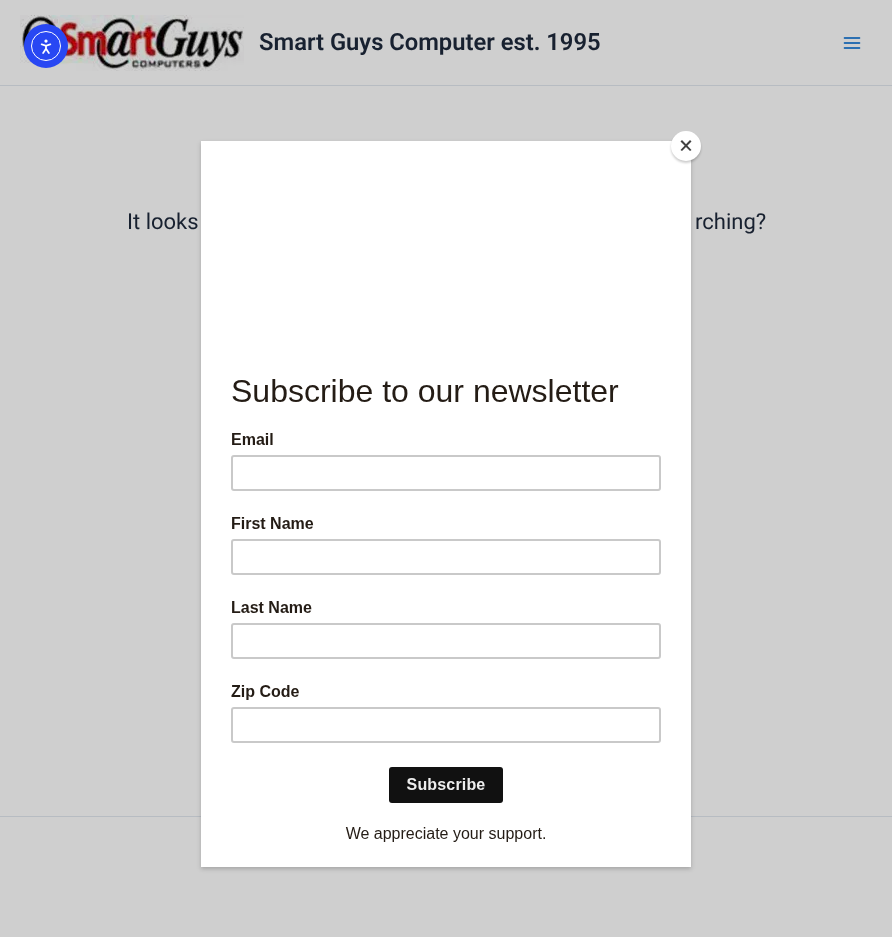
<svg xmlns="http://www.w3.org/2000/svg" width="892" height="937">
<style>
.a{font:600 23.75px Roboto;fill:#182130}
.b{font:22px Roboto;fill:#182130}
</style>
<rect width="100%" height="100%" fill="#cfcfcf"/>
<image href="2.png" x="20" y="15" width="224" height="56"/>
<circle fill="#2847f3" cx="46" cy="46" r="22"/>
<circle fill="none" stroke="#fff" cx="46" cy="46" r="14.5"/>
<image href="1.png" x="40" y="39" width="12" height="15"/>
<path fill="#b7bcc2" d="M0 85h892v1H0z"/>
<image href="3.png" x="843" y="37" width="18" height="12"/>
<path fill="#b7bcc2" d="M0 816h892v1H0z"/>
<path fill="#00000033" filter="blur(2px)" d="M201 143h490v726H201z"/>
<image href="4.png" x="201" y="141" width="490" height="726"/>
<rect fill="#00000033" filter="blur(1px)" x="671" y="133" width="30" height="30" rx="15"/>
<circle fill="#fff" cx="686" cy="146" r="15"/>
<path fill="#414141" d="M690 140l1.5 1.5l-9.5 9.5l-1.5-1z"/>
<path fill="#414141" d="M680.5 141.5l1.5-1.5l9.5 10l-1.5 1z"/>
<text class="a" x="259" y="50">Smart Guys Computer est. 1995</text>
<text class="b" x="127" y="229">It looks</text>
<text class="b" x="695" y="229">rching?</text>
</svg>
